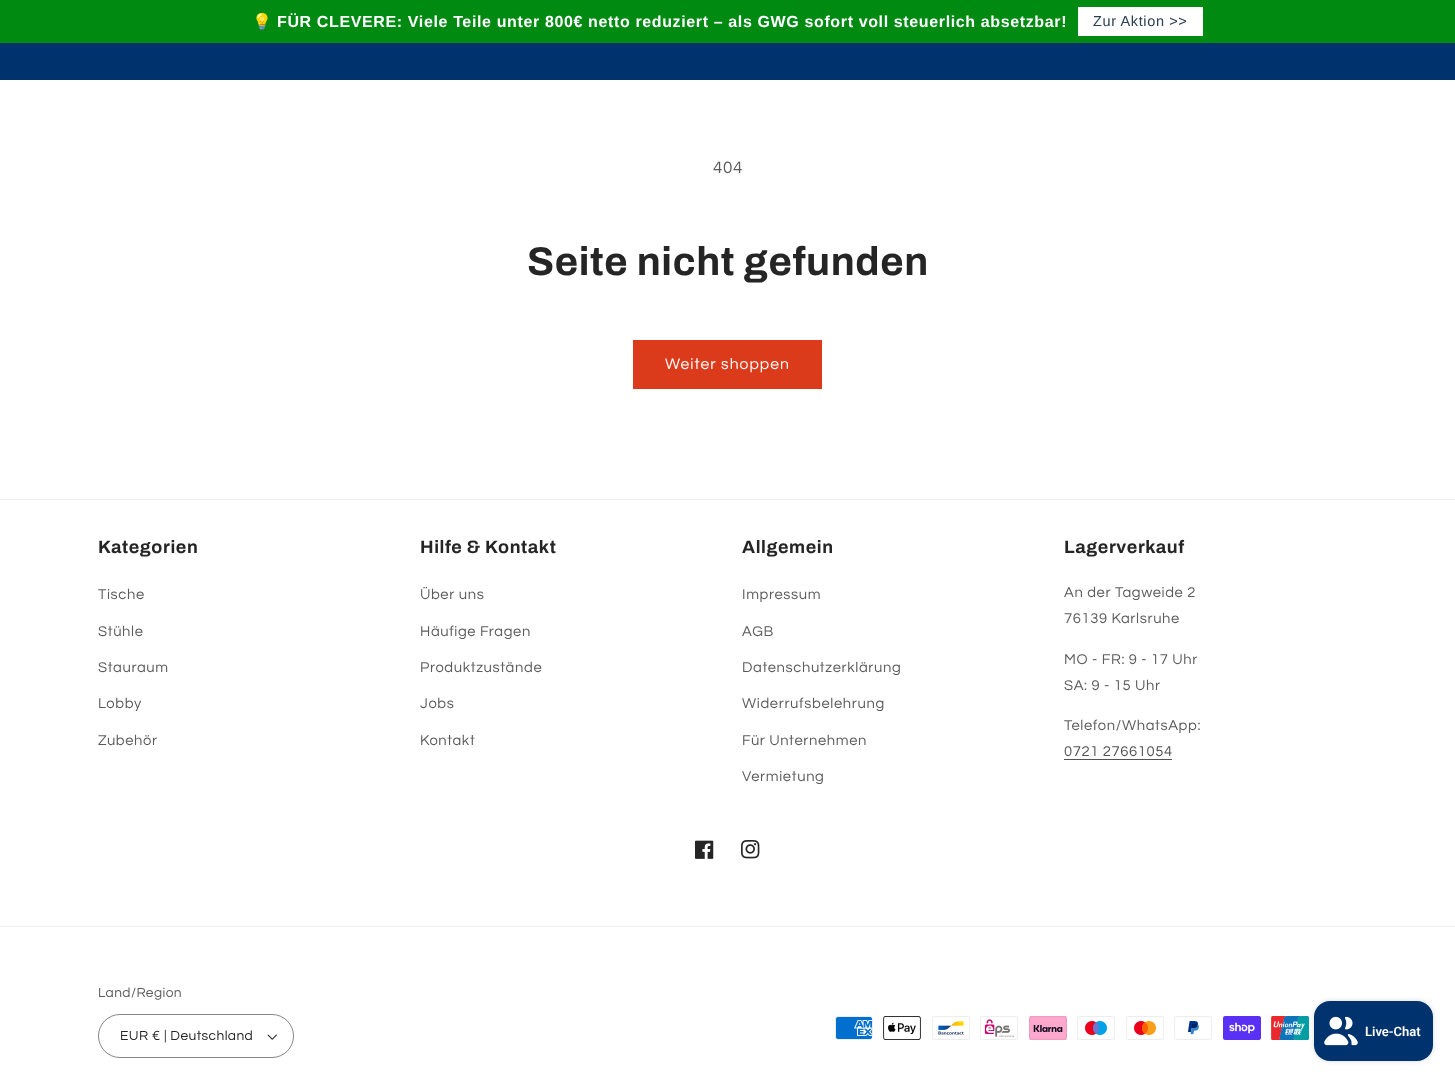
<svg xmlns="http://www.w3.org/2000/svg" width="1455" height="1082">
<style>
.a{font:bold 16px Noto Color Emoji;letter-spacing:0.63px;fill:#fff}
.b{font:bold 16px Liberation Sans;letter-spacing:0.63px;fill:#fff}
.c{font:14.5px Liberation Sans;letter-spacing:0.63px;fill:#2c4053}
.d{font:17px Questrial;letter-spacing:0.63px;fill:#5c5c5c}
.e{font:bold 40px Archivo;letter-spacing:0.6px;fill:#252525}
.f{font:15.75px Questrial;letter-spacing:1px;fill:#fff}
.g{font:bold 18px Archivo;letter-spacing:0.6px;fill:#252525}
.h{font:14.75px Questrial;letter-spacing:0.63px;fill:#5c5c5c}
.i{font:14.75px Questrial;letter-spacing:0.63px;fill:#535353}
.j{font:13.75px Questrial;letter-spacing:0.4px;fill:#5c5c5c}
.k{font:13.75px Questrial;letter-spacing:0.4px;fill:#252525}
.l{font:600 13px Roboto;fill:#fff}
</style>
<rect width="100%" height="100%" fill="#fff"/>
<path fill="#008a12" d="M0 0h1455v43H0z"/>
<path fill="#fff" d="M1078 7h125v29H1078z"/>
<path fill="#00326d" d="M0 43h1455v37H0z"/>
<path fill="#db3a1b" d="M633 340h189v49H633z"/>
<path fill="#eee" d="M0 499h1455v1H0z"/>
<path fill="#535353" d="M1064 759h108v1H1064z"/>
<image href="1.png" x="695" y="840" width="19" height="19"/>
<image href="2.png" x="741" y="840" width="19" height="19"/>
<path fill="#eee" d="M0 926h1455v1H0z"/>
<image href="3.png" x="267" y="1034" width="10" height="6"/>
<rect fill="none" stroke="#878787" x="98.5" y="1014.5" width="195" height="43" rx="21.5"/>
<image href="4.png" x="835" y="1016" width="38" height="24"/>
<image href="5.png" x="883" y="1016" width="38" height="24"/>
<image href="6.png" x="932" y="1016" width="38" height="24"/>
<image href="7.png" x="980" y="1016" width="38" height="24"/>
<image href="8.png" x="1029" y="1016" width="38" height="24"/>
<image href="9.png" x="1077" y="1016" width="38" height="24"/>
<image href="10.png" x="1126" y="1016" width="38" height="24"/>
<image href="11.png" x="1174" y="1016" width="38" height="24"/>
<image href="12.png" x="1223" y="1016" width="38" height="24"/>
<image href="13.png" x="1271" y="1016" width="38" height="24"/>
<rect fill="#00000026" filter="blur(2.5px)" x="1314" y="1001" width="119" height="60" rx="16"/>
<rect fill="#00326d" x="1314" y="1001" width="119" height="60" rx="16"/>
<image href="14.png" x="1324" y="1016" width="34" height="30"/>
<text class="a" x="252" y="27">💡</text>
<text class="b" x="277" y="27">FÜR CLEVERE: Viele Teile unter 800€ netto reduziert – als GWG sofort voll steuerlich absetzbar!</text>
<text class="c" x="1093" y="26">Zur Aktion &gt;&gt;</text>
<text class="d" x="713" y="173">404</text>
<text class="e" x="527" y="275">Seite nicht gefunden</text>
<text class="f" x="665" y="369">Weiter shoppen</text>
<text class="g" x="98" y="553">Kategorien</text>
<text class="h" x="98" y="599">Tische</text>
<text class="h" x="98" y="636">Stühle</text>
<text class="h" x="98" y="672">Stauraum</text>
<text class="h" x="98" y="708">Lobby</text>
<text class="h" x="98" y="745">Zubehör</text>
<text class="g" x="420" y="553">Hilfe &amp; Kontakt</text>
<text class="h" x="420" y="599">Über uns</text>
<text class="h" x="420" y="636">Häufige Fragen</text>
<text class="h" x="420" y="672">Produktzustände</text>
<text class="h" x="420" y="708">Jobs</text>
<text class="h" x="420" y="745">Kontakt</text>
<text class="g" x="742" y="553">Allgemein</text>
<text class="h" x="742" y="599">Impressum</text>
<text class="h" x="742" y="636">AGB</text>
<text class="h" x="742" y="672">Datenschutzerklärung</text>
<text class="h" x="742" y="708">Widerrufsbelehrung</text>
<text class="h" x="742" y="745">Für Unternehmen</text>
<text class="h" x="742" y="781">Vermietung</text>
<text class="g" x="1064" y="553">Lagerverkauf</text>
<text class="h" x="1064" y="597">An der Tagweide 2</text>
<text class="h" x="1064" y="623">76139 Karlsruhe</text>
<text class="h" x="1064" y="664">MO - FR: 9 - 17 Uhr</text>
<text class="h" x="1064" y="690">SA: 9 - 15 Uhr</text>
<text class="h" x="1064" y="730">Telefon/WhatsApp:</text>
<text class="i" x="1064" y="756">0721 27661054</text>
<text class="j" x="98" y="997">Land/Region</text>
<text class="k" x="120" y="1040">EUR € | Deutschland</text>
<text class="l" x="1365" y="1036">Live-Chat</text>
</svg>
